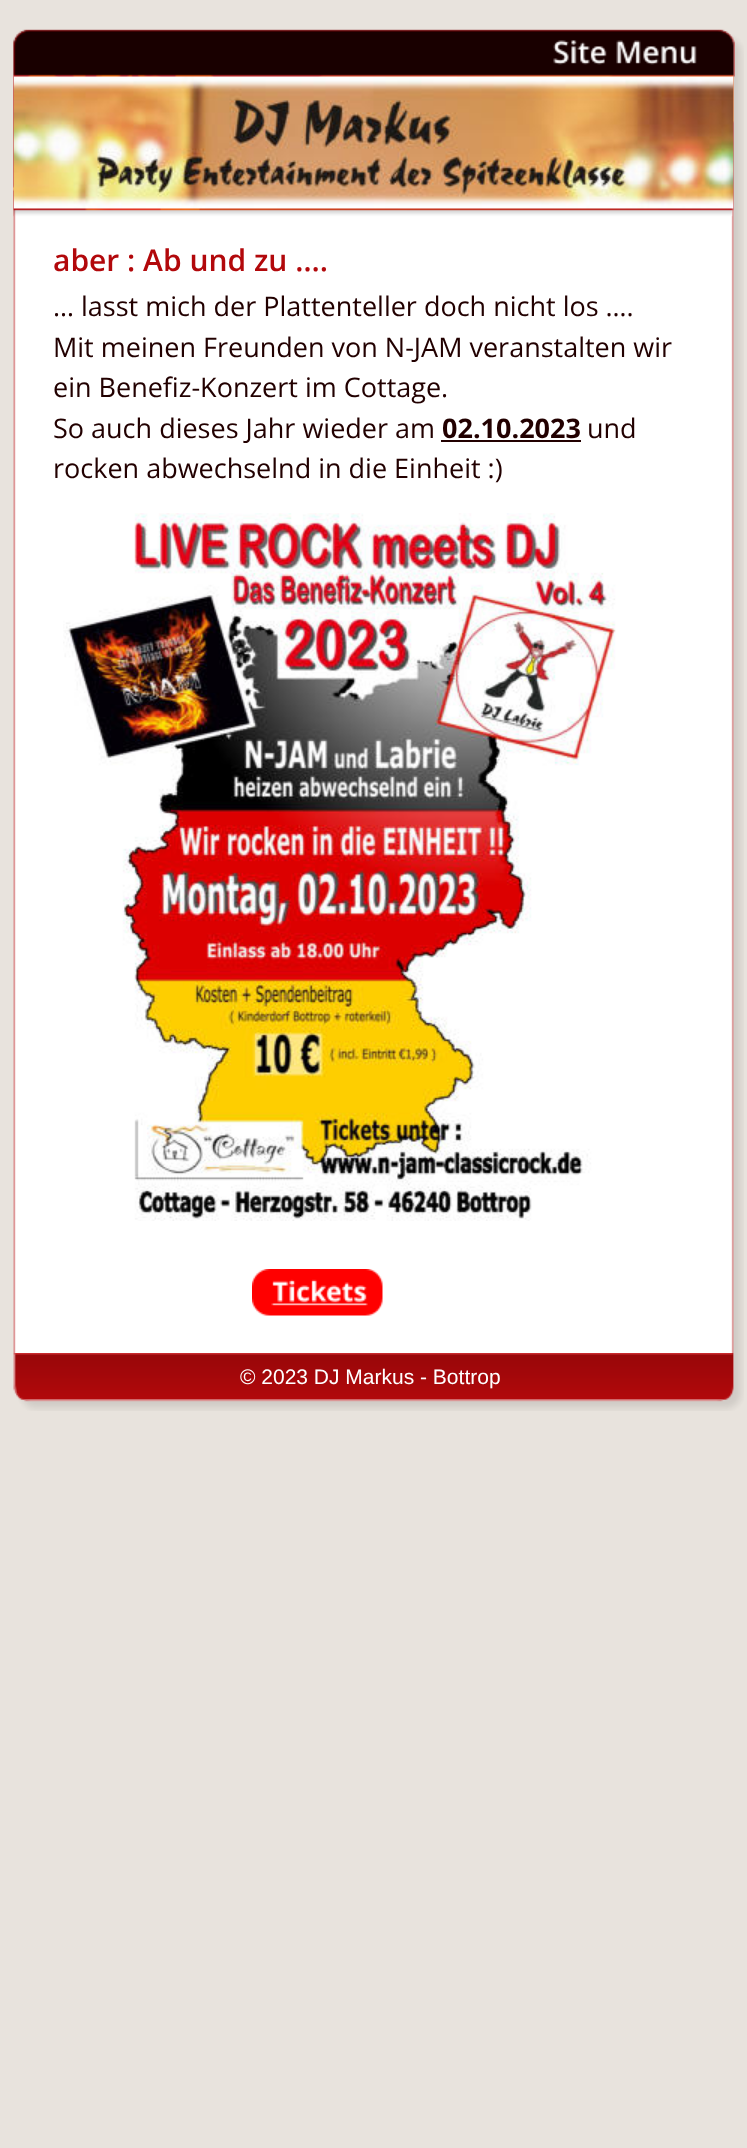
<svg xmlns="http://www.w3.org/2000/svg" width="747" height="2148">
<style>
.a{font:600 30px Open Sans;fill:#b2080b}
.b{font:27px Open Sans;fill:#200}
.c{font:bold 27px Open Sans;fill:#200}
.d{font:21px Liberation Sans;fill:#fff}
</style>
<rect width="100%" height="100%" fill="#e8e3dd"/>
<image href="1.png" x="13" y="29" width="731" height="1382"/>
<image href="2.png" x="13" y="29" width="722" height="188"/>
<image href="3.png" x="553" y="40" width="144" height="25"/>
<image href="4.png" x="13" y="76" width="721" height="133"/>
<path fill="#200" d="M441 440h140v2H441z"/>
<image href="5.png" x="63" y="513" width="553" height="708"/>
<image href="6.png" x="252" y="1269" width="131" height="47"/>
<image href="7.png" x="13" y="1353" width="721" height="47"/>
<text class="a" x="53" y="271">aber : Ab und zu ….</text>
<text class="b" x="53" y="316">… lasst mich der Plattenteller doch nicht los ….</text>
<text class="b" x="53" y="357">Mit meinen Freunden von N-JAM veranstalten wir</text>
<text class="b" x="53" y="397">ein Benefiz-Konzert im Cottage.</text>
<text class="b" x="53" y="438">So auch dieses Jahr wieder am</text>
<text class="c" x="442" y="438">02.10.2023</text>
<text class="b" x="587" y="438">und</text>
<text class="b" x="53" y="478">rocken abwechselnd in die Einheit :)</text>
<text class="d" x="240" y="1384">© 2023 DJ Markus - Bottrop</text>
</svg>
